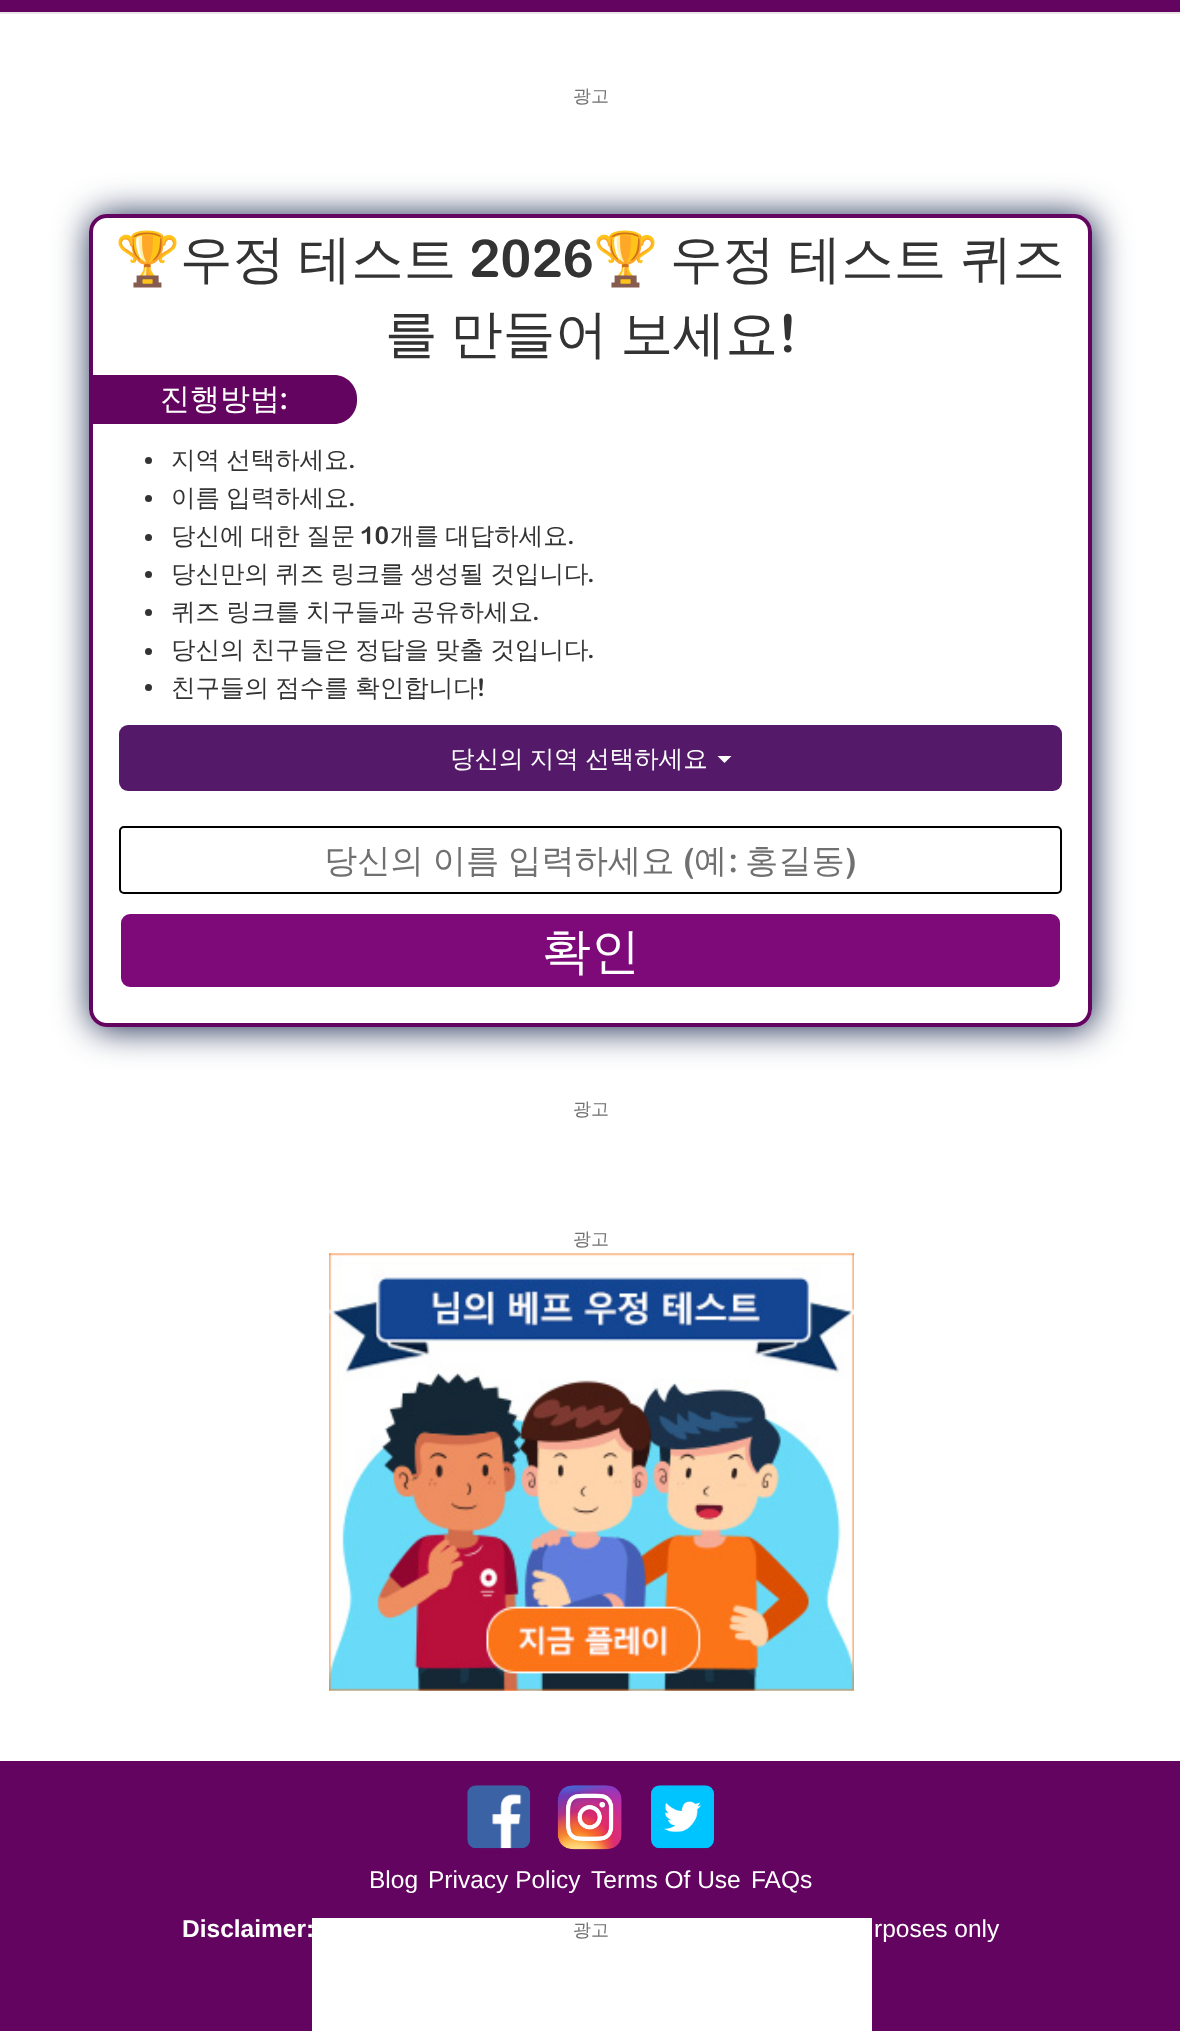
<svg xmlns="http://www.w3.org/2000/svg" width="1180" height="2031">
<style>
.a{font:500 18px WenQuanYi Zen Hei;fill:#707070}
.b{font:52.5px Noto Color Emoji;fill:#333}
.c{font:500 52.5px WenQuanYi Zen Hei;fill:#333}
.d{font:bold 52.5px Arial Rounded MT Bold;fill:#333}
.e{font:500 30px WenQuanYi Zen Hei;fill:#fff}
.f{font:bold 30px Arial Rounded MT Bold;fill:#fff}
.g{font:500 24.5px WenQuanYi Zen Hei;fill:#333}
.h{font:bold 24.5px Arial Rounded MT Bold;fill:#333}
.i{font:500 24.5px WenQuanYi Zen Hei;fill:#fff}
.j{font:500 33.25px WenQuanYi Zen Hei;fill:#707070}
.k{font:bold 33.25px Arial Rounded MT Bold;fill:#707070}
.l{font:500 49px WenQuanYi Zen Hei;fill:#fff}
.m{font:24.5px Liberation Sans;fill:#fff}
.n{font:bold 24.5px Liberation Sans;fill:#fff}
</style>
<defs>
<clipPath id="clip1"><path d="M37 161h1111v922h-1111zm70 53h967c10 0 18 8 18 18v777c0 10-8 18-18 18h-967c-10 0-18-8-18-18v-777c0-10 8-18 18-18z" clip-rule="evenodd"/></clipPath>
</defs>
<rect width="100%" height="100%" fill="#fff"/>
<path fill="#630460" d="M0 0h1180v12H0z"/>
<path fill="#e7e7e7" d="M0 12h1180v2H0z"/>
<g clip-path="url(#clip1)">
<rect fill="#15244b" filter="blur(17.5px)" x="91" y="215" width="1003" height="814" rx="18"/>
</g>
<rect fill="none" stroke="#630460" stroke-width="4" x="91" y="216" width="999" height="809" rx="16"/>
<path fill="#630460" d="M93 375h241c12.5 0 23 10.5 23 23v3c0 12.5-10.5 23-23 23h-241z"/>
<circle fill="#333" cx="148.5" cy="460.5" r="3.5"/>
<circle fill="#333" cx="148.5" cy="498.5" r="3.5"/>
<circle fill="#333" cx="148.5" cy="537.5" r="3.5"/>
<circle fill="#333" cx="148.5" cy="574.5" r="3.5"/>
<circle fill="#333" cx="148.5" cy="612.5" r="3.5"/>
<circle fill="#333" cx="148.5" cy="651.5" r="3.5"/>
<circle fill="#333" cx="148.5" cy="687.5" r="3.5"/>
<rect fill="#541a69" x="119" y="725" width="943" height="66" rx="9"/>
<path fill="#fff" d="M717.5 756h14l-7 7z"/>
<rect fill="none" stroke="#000" stroke-width="2" x="120" y="827" width="941" height="66" rx="4"/>
<rect fill="#7e0a7a" stroke="#fff" stroke-width="2" x="120" y="913" width="941" height="75" rx="10"/>
<image href="1.png" x="329" y="1253" width="525" height="438"/>
<path fill="#630460" d="M0 1761h1180v270H0z"/>
<image href="2.png" x="467" y="1785" width="64" height="64"/>
<image href="3.png" x="557" y="1785" width="65" height="65"/>
<image href="4.png" x="651" y="1785" width="63" height="64"/>
<path fill="#fff" d="M312 1918h560v113H312z"/>
<text class="a" x="573" y="102">광고</text>
<text class="b" x="115" y="277">🏆</text>
<text class="c" x="180" y="277" word-spacing="-2">우정 테스트</text>
<text class="d" x="469" y="277">2026</text>
<text class="b" x="593" y="277">🏆</text>
<text class="c" x="670" y="277" word-spacing="-2">우정 테스트 퀴즈</text>
<text class="c" x="385" y="352" word-spacing="-3">를 만들어 보세요</text>
<text class="d" x="779" y="352">!</text>
<text class="e" x="160" y="409">진행방법</text>
<text class="f" x="279" y="409">:</text>
<text class="g" x="171" y="468" word-spacing="-1">지역 선택하세요</text>
<text class="h" x="348" y="468">.</text>
<text class="g" x="171" y="506" word-spacing="-1">이름 입력하세요</text>
<text class="h" x="348" y="506">.</text>
<text class="g" x="171" y="544" word-spacing="-1">당신에 대한 질문</text>
<text class="h" x="360" y="544">10</text>
<text class="g" x="390" y="544" word-spacing="-1">개를 대답하세요</text>
<text class="h" x="567" y="544">.</text>
<text class="g" x="171" y="582" word-spacing="-1">당신만의 퀴즈 링크를 생성될 것입니다</text>
<text class="h" x="587" y="582">.</text>
<text class="g" x="171" y="620" word-spacing="-1">퀴즈 링크를 치구들과 공유하세요</text>
<text class="h" x="532" y="620">.</text>
<text class="g" x="171" y="658" word-spacing="-1">당신의 친구들은 정답을 맞출 것입니다</text>
<text class="h" x="587" y="658">.</text>
<text class="g" x="171" y="696" word-spacing="-1">친구들의 점수를 확인합니다</text>
<text class="h" x="477" y="696">!</text>
<text class="i" x="450" y="767" word-spacing="-1">당신의 지역 선택하세요</text>
<text class="j" x="324" y="872" word-spacing="-1">당신의 이름 입력하세요</text>
<text class="k" x="683" y="872">(</text>
<text class="j" x="694" y="872">예</text>
<text class="k" x="728" y="872">:</text>
<text class="j" x="745" y="872">홍길동</text>
<text class="k" x="845" y="872">)</text>
<text class="l" x="542" y="968">확인</text>
<text class="a" x="573" y="1115">광고</text>
<text class="a" x="573" y="1245">광고</text>
<text class="m" x="369" y="1888">Blog</text>
<text class="m" x="428" y="1888">Privacy Policy</text>
<text class="m" x="591" y="1888">Terms Of Use</text>
<text class="m" x="751" y="1888">FAQs</text>
<text class="n" x="182" y="1937">Disclaimer:</text>
<text class="m" x="874" y="1937">rposes only</text>
<text class="a" x="573" y="1936">광고</text>
</svg>
